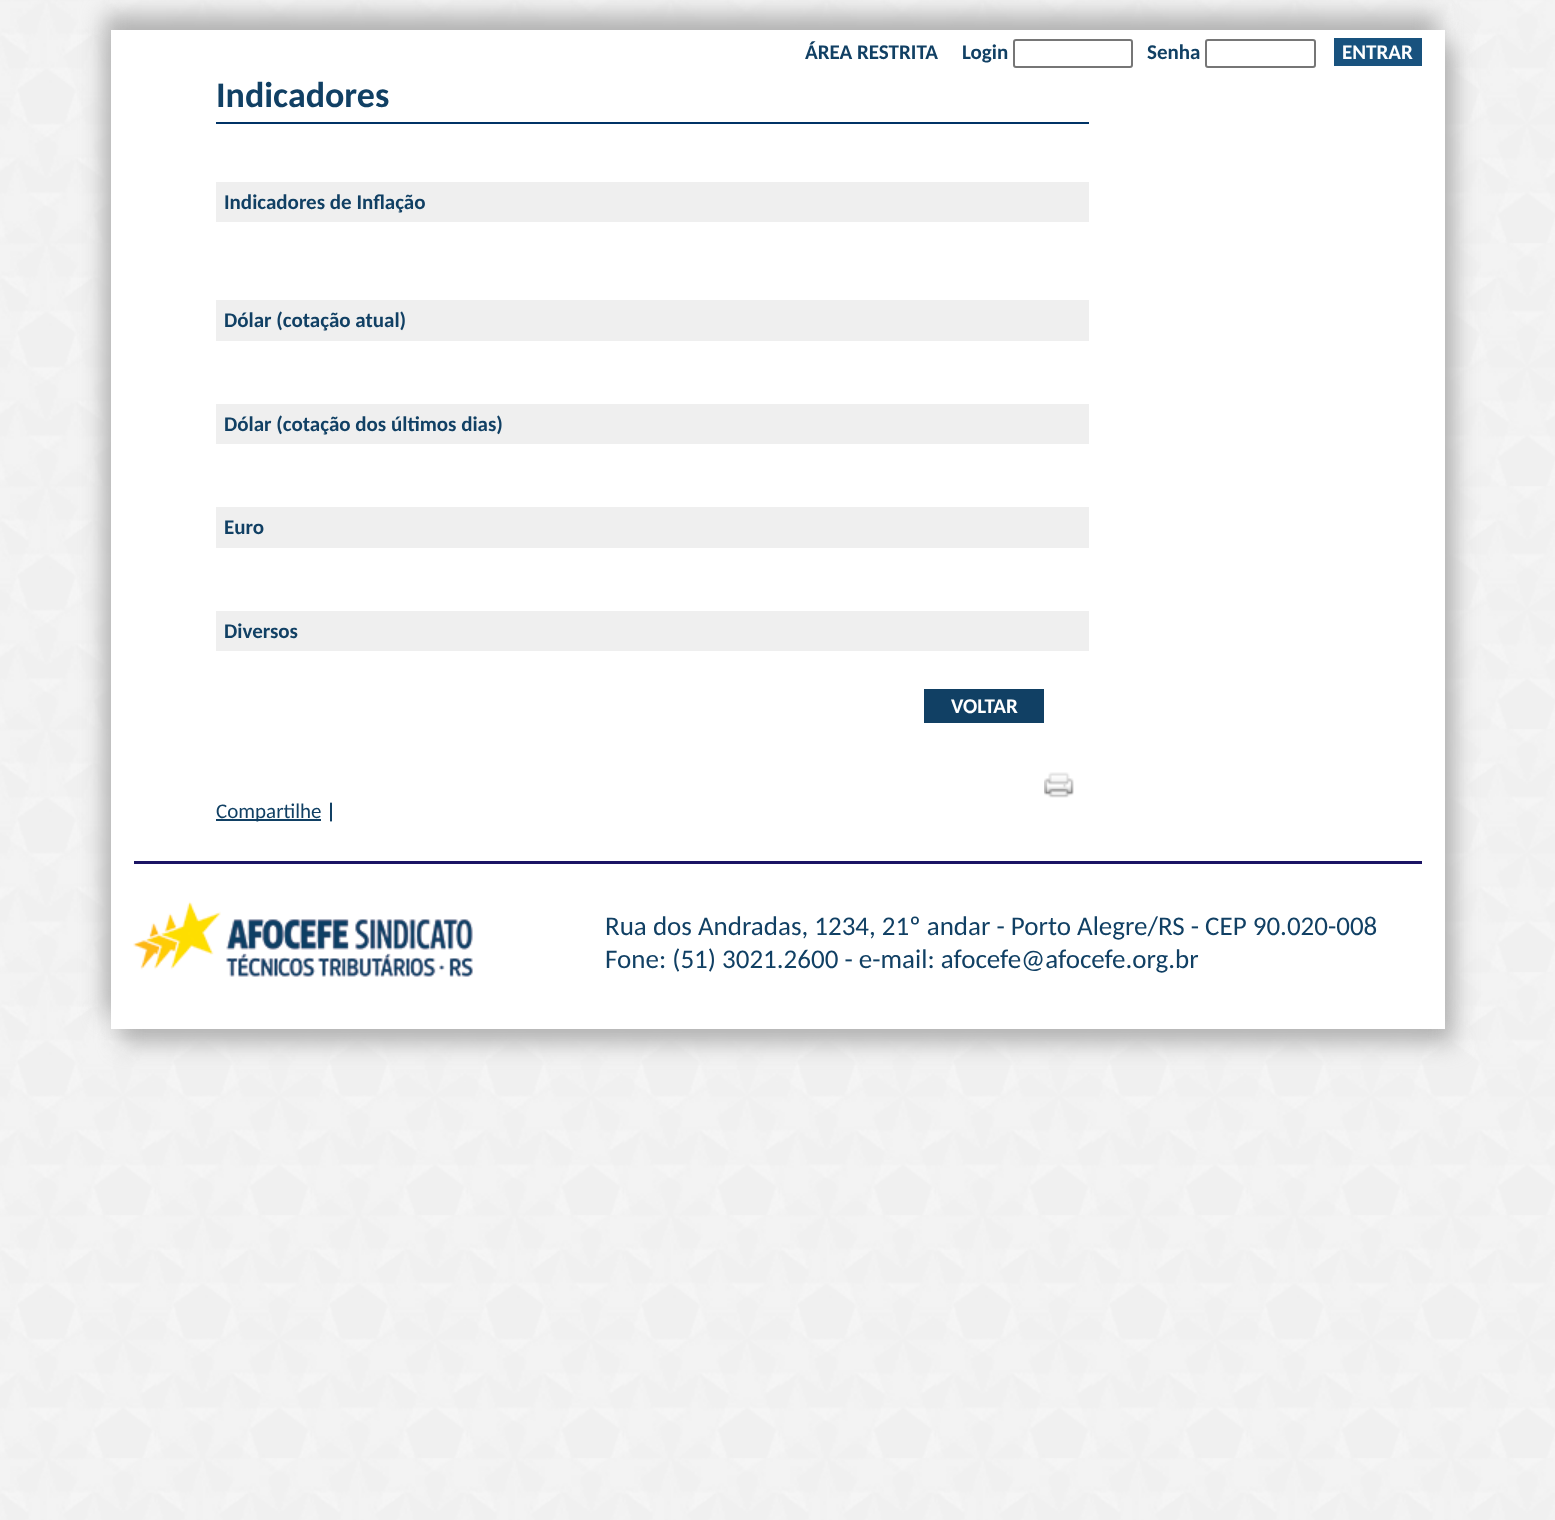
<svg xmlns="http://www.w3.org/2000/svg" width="1555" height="1520">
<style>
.a{font:bold 21px Carlito;fill:#114064}
.b{font:bold 21px Carlito;fill:#fff}
.c{font:bold 36px Carlito;fill:#114064}
.d{font:21px Carlito;fill:#114064}
.e{font:27px Carlito;fill:#114064}
</style>
<rect width="100%" height="100%" fill="#fff"/>
<image href="1.png" x="0" y="0" width="1555" height="1520"/>
<path fill="#b3b3b3" filter="blur(11px)" d="M120 44h1334v999H120z"/>
<path fill="#b3b3b3" filter="blur(11px)" d="M104 15h1333v999H104z"/>
<path fill="#fff" d="M111 30h1334v999H111z"/>
<rect fill="none" stroke="#767676" stroke-width="2" x="1014" y="40" width="118" height="27" rx="2"/>
<rect fill="none" stroke="#767676" stroke-width="2" x="1206" y="40" width="109" height="27" rx="2"/>
<path fill="#18527e" d="M1334 38h88v28H1334z"/>
<path fill="#036" d="M216 122h873v2H216z"/>
<path fill="#efefef" d="M216 182h873v40H216z"/>
<path fill="#efefef" d="M216 300h873v41H216z"/>
<path fill="#efefef" d="M216 404h873v40H216z"/>
<path fill="#efefef" d="M216 507h873v41H216z"/>
<path fill="#efefef" d="M216 611h873v40H216z"/>
<path fill="#114064" d="M924 689h120v34H924z"/>
<image href="2.png" x="1044" y="772" width="30" height="26"/>
<path fill="#114064" d="M216 819h105v2H216z"/>
<path fill="#1b1464" d="M134 861h1288v3H134z"/>
<image href="3.png" x="133" y="901" width="340" height="76"/>
<text class="a" x="805" y="59">ÁREA RESTRITA</text>
<text class="a" x="962" y="59">Login</text>
<text class="a" x="1147" y="59">Senha</text>
<text class="b" x="1342" y="59">ENTRAR</text>
<text class="c" x="216" y="107">Indicadores</text>
<text class="a" x="224" y="209">Indicadores de Inflação</text>
<text class="a" x="224" y="327">Dólar (cotação atual)</text>
<text class="a" x="224" y="431">Dólar (cotação dos últimos dias)</text>
<text class="a" x="224" y="534">Euro</text>
<text class="a" x="224" y="638">Diversos</text>
<text class="b" x="951" y="713">VOLTAR</text>
<text class="d" x="216" y="818">Compartilhe</text>
<text class="a" x="326" y="818">|</text>
<text class="e" x="605" y="935">Rua dos Andradas, 1234, 21º andar - Porto Alegre/RS - CEP 90.020-008</text>
<text class="e" x="605" y="968">Fone: (51) 3021.2600 - e-mail: afocefe@afocefe.org.br</text>
</svg>
